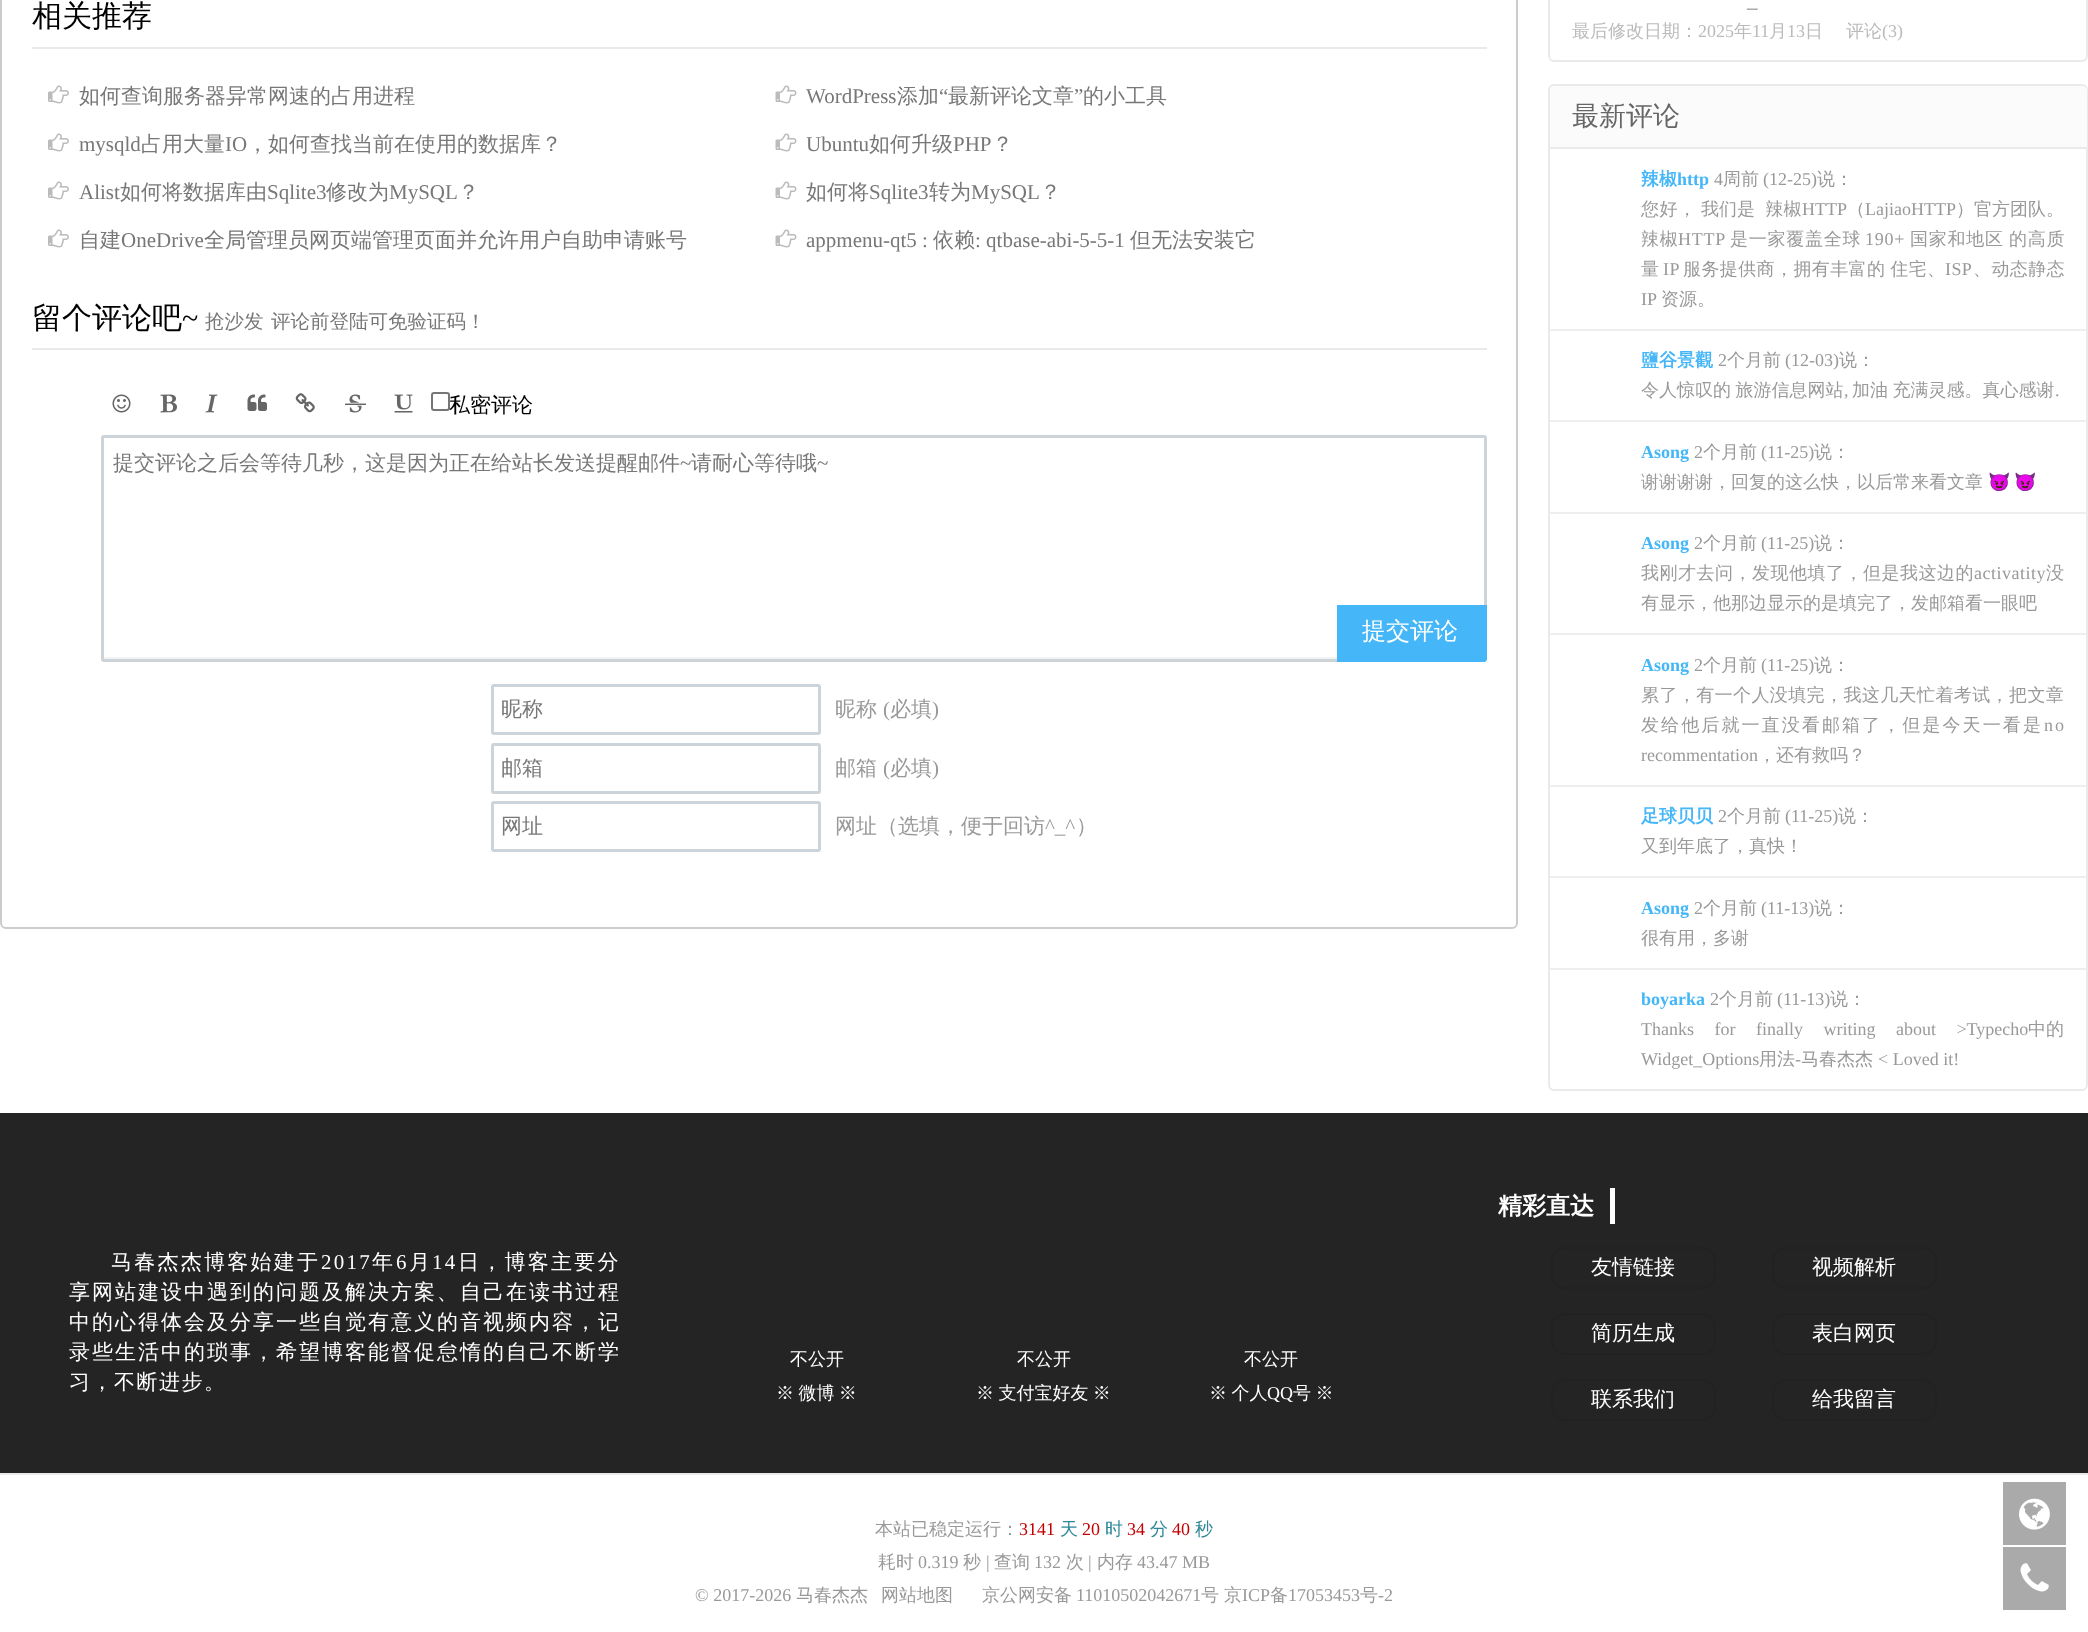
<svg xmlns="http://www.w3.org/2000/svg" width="2088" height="1632">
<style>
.a{font:500 30px WenQuanYi Zen Hei;fill:#000}
.b{font:500 21px WenQuanYi Zen Hei;fill:#777}
.c{font:21px Liberation Serif;fill:#777}
.d{font:30px Liberation Serif;fill:#000}
.e{font:500 19.5px WenQuanYi Zen Hei;fill:#777}
.f{font:500 21px WenQuanYi Zen Hei;fill:#000}
.g{font:500 24px WenQuanYi Zen Hei;fill:#fff}
.h{font:500 21px WenQuanYi Zen Hei;fill:#999}
.i{font:21px Liberation Serif;fill:#999}
.j{font:21px Liberation Serif;fill:#888}
.k{font:500 18px WenQuanYi Zen Hei;fill:#bbb}
.l{font:18px Liberation Serif;fill:#bbb}
.m{font:500 27px WenQuanYi Zen Hei;fill:#666}
.n{font:bold 18px WenQuanYi Zen Hei;fill:#45b6f7}
.o{font:bold 18px Liberation Serif;fill:#45b6f7}
.p{font:18px Liberation Serif;fill:#999}
.q{font:500 18px WenQuanYi Zen Hei;fill:#999}
.r{font:500 18px WenQuanYi Zen Hei;letter-spacing:0.5px;fill:#999}
.s{font:500 18px WenQuanYi Zen Hei;letter-spacing:0.75px;fill:#999}
.t{font:18px Liberation Serif;letter-spacing:0.75px;fill:#999}
.u{font:500 18px WenQuanYi Zen Hei;letter-spacing:0.4px;fill:#999}
.v{font:18px Liberation Serif;letter-spacing:0.4px;fill:#999}
.w{font:18px Noto Color Emoji;fill:#999}
.x{font:18px Liberation Serif;letter-spacing:0.5px;fill:#999}
.y{font:500 18px WenQuanYi Zen Hei;letter-spacing:2.1px;fill:#999}
.z{font:18px Liberation Serif;letter-spacing:2.1px;fill:#999}
.a1{font:500 21px WenQuanYi Zen Hei;letter-spacing:2.25px;fill:#fff}
.b1{font:21px Liberation Serif;letter-spacing:2.25px;fill:#fff}
.c1{font:500 21px WenQuanYi Zen Hei;letter-spacing:2px;fill:#fff}
.d1{font:500 21px WenQuanYi Zen Hei;letter-spacing:1.5px;fill:#fff}
.e1{font:500 18px WenQuanYi Zen Hei;fill:#fff}
.f1{font:18px Liberation Serif;fill:#fff}
.g1{font:bold 24px WenQuanYi Zen Hei;fill:#fff}
.h1{font:500 21px WenQuanYi Zen Hei;fill:#fff}
.i1{font:18px Liberation Serif;fill:#c40000}
.j1{font:500 18px WenQuanYi Zen Hei;fill:#2f889a}
</style>
<rect width="100%" height="100%" fill="#fff"/>
<rect fill="none" stroke="#ccc" stroke-width="2" x="1" y="-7" width="1516" height="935" rx="5"/>
<path fill="#eaeaea" d="M32 47h1455v2H32z"/>
<image href="1.png" x="48" y="85" width="21" height="19"/>
<image href="2.png" x="775" y="85" width="22" height="19"/>
<image href="1.png" x="48" y="133" width="21" height="19"/>
<image href="2.png" x="775" y="133" width="22" height="19"/>
<image href="1.png" x="48" y="181" width="21" height="19"/>
<image href="2.png" x="775" y="181" width="22" height="19"/>
<image href="1.png" x="48" y="229" width="21" height="19"/>
<image href="2.png" x="775" y="229" width="22" height="19"/>
<path fill="#eaeaea" d="M32 348h1455v2H32z"/>
<image href="3.png" x="112" y="394" width="19" height="19"/>
<image href="4.png" x="160" y="394" width="17" height="19"/>
<image href="5.png" x="205" y="394" width="13" height="19"/>
<image href="6.png" x="247" y="394" width="20" height="17"/>
<image href="7.png" x="295" y="393" width="20" height="20"/>
<image href="8.png" x="345" y="394" width="21" height="19"/>
<image href="9.png" x="394" y="394" width="19" height="19"/>
<rect fill="none" stroke="#767676" stroke-width="2" x="432" y="393" width="17" height="17" rx="2"/>
<rect fill="none" stroke="#ccd4d9" stroke-width="3" x="102.5" y="436.5" width="1383" height="224" rx="1.5"/>
<path fill="#f2f2f2" d="M104 657h1233v2H104z"/>
<path fill="#45b6f7" d="M1337 605h150v54c0 1.5-1.5 3-3 3h-147z"/>
<path fill="#45b6f7" d="M1486 659h1v1H1486z"/>
<path fill="#45b6f7" d="M1484 661h1v1H1484z"/>
<rect fill="none" stroke="#ccd4d9" stroke-width="3" x="492.5" y="685.5" width="327" height="48" rx="1.5"/>
<rect fill="none" stroke="#ccd4d9" stroke-width="3" x="492.5" y="744.5" width="327" height="48" rx="1.5"/>
<rect fill="none" stroke="#ccd4d9" stroke-width="3" x="492.5" y="802.5" width="327" height="48" rx="1.5"/>
<rect fill="none" stroke="#eaeaea" stroke-width="2" x="1549" y="-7" width="538" height="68" rx="5"/>
<rect fill="none" stroke="#eaeaea" stroke-width="2" x="1549" y="85" width="538" height="1005" rx="5"/>
<path fill="#fbfbfb" d="M1555 86h527c3 0 5 2 5 5v58h-537v-58c0-3 2-5 5-5z"/>
<path fill="#eaeaea" d="M1550 147h537v2H1550z"/>
<path fill="#eee" d="M1550 329h537v2H1550z"/>
<path fill="#eee" d="M1550 420h537v2H1550z"/>
<path fill="#eee" d="M1550 512h537v2H1550z"/>
<path fill="#eee" d="M1550 633h537v2H1550z"/>
<path fill="#eee" d="M1550 785h537v2H1550z"/>
<path fill="#eee" d="M1550 876h537v2H1550z"/>
<path fill="#eee" d="M1550 968h537v2H1550z"/>
<path fill="#252424" d="M0 1113h2088v360H0z"/>
<path fill="#fff" d="M1610 1188h5v36H1610z"/>
<rect fill="none" stroke="#222" stroke-width="2" x="1552" y="1248" width="163" height="40" rx="13"/>
<rect fill="none" stroke="#222" stroke-width="2" x="1773" y="1248" width="163" height="40" rx="13"/>
<rect fill="none" stroke="#222" stroke-width="2" x="1552" y="1314" width="163" height="40" rx="13"/>
<rect fill="none" stroke="#222" stroke-width="2" x="1773" y="1314" width="163" height="40" rx="13"/>
<rect fill="none" stroke="#222" stroke-width="2" x="1552" y="1380" width="163" height="40" rx="13"/>
<rect fill="none" stroke="#222" stroke-width="2" x="1773" y="1380" width="163" height="40" rx="13"/>
<path fill="#eaeaea" d="M0 1473h2088v2H0z"/>
<path fill="#aaa" d="M2003 1482h63v63H2003z"/>
<image href="10.png" x="2019" y="1498" width="31" height="32"/>
<path fill="#aaa" d="M2003 1547h63v63H2003z"/>
<image href="11.png" x="2020" y="1563" width="29" height="29"/>
<text class="a" x="32" y="26">相关推荐</text>
<text class="b" x="79" y="103">如何查询服务器异常网速的占用进程</text>
<text class="c" x="806" y="103">WordPress</text>
<text class="b" x="897" y="103">添加</text>
<text class="c" x="939" y="103">“</text>
<text class="b" x="948" y="103">最新评论文章</text>
<text class="c" x="1074" y="103">”</text>
<text class="b" x="1083" y="103">的小工具</text>
<text class="c" x="79" y="151">mysqld</text>
<text class="b" x="141" y="151">占用大量</text>
<text class="c" x="225" y="151">IO</text>
<text class="b" x="247" y="151">，如何查找当前在使用的数据库？</text>
<text class="c" x="806" y="151">Ubuntu</text>
<text class="b" x="869" y="151">如何升级</text>
<text class="c" x="953" y="151">PHP</text>
<text class="b" x="992" y="151">？</text>
<text class="c" x="79" y="199">Alist</text>
<text class="b" x="120" y="199">如何将数据库由</text>
<text class="c" x="267" y="199">Sqlite3</text>
<text class="b" x="326" y="199">修改为</text>
<text class="c" x="389" y="199">MySQL</text>
<text class="b" x="458" y="199">？</text>
<text class="b" x="806" y="199">如何将</text>
<text class="c" x="869" y="199">Sqlite3</text>
<text class="b" x="929" y="199">转为</text>
<text class="c" x="971" y="199">MySQL</text>
<text class="b" x="1040" y="199">？</text>
<text class="b" x="79" y="247">自建</text>
<text class="c" x="121" y="247">OneDrive</text>
<text class="b" x="204" y="247">全局管理员网页端管理页面并允许用户自助申请账号</text>
<text class="c" x="806" y="247">appmenu-qt5 :</text>
<text class="b" x="933" y="247">依赖</text>
<text class="c" x="975" y="247">: qtbase-abi-5-5-1</text>
<text class="b" x="1130" y="247">但无法安装它</text>
<text class="a" x="32" y="328">留个评论吧</text>
<text class="d" x="182" y="328">~</text>
<text class="e" x="205" y="328">抢沙发</text>
<text class="e" x="271" y="328">评论前登陆可免验证码！</text>
<text class="f" x="449" y="412">私密评论</text>
<text class="b" x="113" y="470">提交评论之后会等待几秒，这是因为正在给站长发送提醒邮件</text>
<text class="c" x="680" y="470">~</text>
<text class="b" x="691" y="470">请耐心等待哦</text>
<text class="c" x="817" y="470">~</text>
<text class="g" x="1362" y="639">提交评论</text>
<text class="b" x="501" y="716">昵称</text>
<text class="h" x="835" y="716">昵称</text>
<text class="i" x="883" y="716">(</text>
<text class="h" x="890" y="716">必填</text>
<text class="i" x="932" y="716">)</text>
<text class="b" x="501" y="775">邮箱</text>
<text class="h" x="835" y="775">邮箱</text>
<text class="i" x="883" y="775">(</text>
<text class="h" x="890" y="775">必填</text>
<text class="i" x="932" y="775">)</text>
<text class="b" x="501" y="833">网址</text>
<text class="h" x="835" y="833">网址（选填，便于回访</text>
<text class="i" x="1045" y="833">^_^</text>
<text class="h" x="1076" y="833">）</text>
<text class="j" x="1747" y="7">_</text>
<text class="k" x="1572" y="37">最后修改日期：</text>
<text class="l" x="1698" y="37">2025</text>
<text class="k" x="1734" y="37">年</text>
<text class="l" x="1752" y="37">11</text>
<text class="k" x="1769" y="37">月</text>
<text class="l" x="1787" y="37">13</text>
<text class="k" x="1805" y="37">日</text>
<text class="k" x="1846" y="37">评论</text>
<text class="l" x="1882" y="37">(3)</text>
<text class="m" x="1572" y="125">最新评论</text>
<text class="n" x="1641" y="185">辣椒</text>
<text class="o" x="1677" y="185">http</text>
<text class="p" x="1714" y="185">4</text>
<text class="q" x="1723" y="185">周前</text>
<text class="p" x="1763" y="185">(12-25)</text>
<text class="q" x="1817" y="185">说：</text>
<text class="r" x="1641" y="215">您好，</text>
<text class="q" x="1701" y="215" word-spacing="5">我们是 辣椒</text>
<text class="p" x="1802" y="215">HTTP</text>
<text class="q" x="1847" y="215">（</text>
<text class="p" x="1865" y="215">LajiaoHTTP</text>
<text class="q" x="1956" y="215">）官方团队。</text>
<text class="s" x="1641" y="245">辣椒</text>
<text class="t" x="1678" y="245">HTTP</text>
<text class="s" x="1730" y="245">是一家覆盖全球</text>
<text class="t" x="1865" y="245">190+</text>
<text class="s" x="1910" y="245" word-spacing="-1">国家和地区 的高质</text>
<text class="u" x="1641" y="275">量</text>
<text class="v" x="1663" y="275">IP</text>
<text class="u" x="1683" y="275" word-spacing="-1">服务提供商，拥有丰富的 住宅、</text>
<text class="v" x="1945" y="275">ISP</text>
<text class="u" x="1973" y="275">、动态静态</text>
<text class="p" x="1641" y="305">IP</text>
<text class="q" x="1661" y="305">资源。</text>
<text class="n" x="1641" y="366">鹽谷景觀</text>
<text class="p" x="1718" y="366">2</text>
<text class="q" x="1727" y="366">个月前</text>
<text class="p" x="1785" y="366">(12-03)</text>
<text class="q" x="1839" y="366">说：</text>
<text class="q" x="1641" y="396" word-spacing="-1">令人惊叹的 旅游信息网站</text>
<text class="p" x="1844" y="396">,</text>
<text class="q" x="1852" y="396" word-spacing="-1">加油 充满灵感。真心感谢</text>
<text class="p" x="2055" y="396">.</text>
<text class="o" x="1641" y="458">Asong</text>
<text class="p" x="1694" y="458">2</text>
<text class="q" x="1703" y="458">个月前</text>
<text class="p" x="1761" y="458">(11-25)</text>
<text class="q" x="1814" y="458">说：</text>
<text class="q" x="1641" y="488">谢谢谢谢，回复的这么快，以后常来看文章</text>
<text class="w" x="1988" y="488">😈</text>
<text class="w" x="2014" y="488">😈</text>
<text class="o" x="1641" y="549">Asong</text>
<text class="p" x="1694" y="549">2</text>
<text class="q" x="1703" y="549">个月前</text>
<text class="p" x="1761" y="549">(11-25)</text>
<text class="q" x="1814" y="549">说：</text>
<text class="r" x="1641" y="579">我刚才去问，发现他填了，但是我这边的</text>
<text class="x" x="1974" y="579">activatity</text>
<text class="r" x="2046" y="579">没</text>
<text class="q" x="1641" y="609">有显示，他那边显示的是填完了，发邮箱看一眼吧</text>
<text class="o" x="1641" y="671">Asong</text>
<text class="p" x="1694" y="671">2</text>
<text class="q" x="1703" y="671">个月前</text>
<text class="p" x="1761" y="671">(11-25)</text>
<text class="q" x="1814" y="671">说：</text>
<text class="u" x="1641" y="701">累了，有一个人没填完，我这几天忙着考试，把文章</text>
<text class="y" x="1641" y="731">发给他后就一直没看邮箱了，但是今天一看是</text>
<text class="z" x="2044" y="731">no</text>
<text class="p" x="1641" y="761">recommentation</text>
<text class="q" x="1758" y="761">，还有救吗？</text>
<text class="n" x="1641" y="822">足球贝贝</text>
<text class="p" x="1718" y="822">2</text>
<text class="q" x="1727" y="822">个月前</text>
<text class="p" x="1785" y="822">(11-25)</text>
<text class="q" x="1838" y="822">说：</text>
<text class="q" x="1641" y="852">又到年底了，真快！</text>
<text class="o" x="1641" y="914">Asong</text>
<text class="p" x="1694" y="914">2</text>
<text class="q" x="1703" y="914">个月前</text>
<text class="p" x="1761" y="914">(11-13)</text>
<text class="q" x="1814" y="914">说：</text>
<text class="q" x="1641" y="944">很有用，多谢</text>
<text class="o" x="1641" y="1005">boyarka</text>
<text class="p" x="1710" y="1005">2</text>
<text class="q" x="1719" y="1005">个月前</text>
<text class="p" x="1777" y="1005">(11-13)</text>
<text class="q" x="1830" y="1005">说：</text>
<text class="p" x="1641" y="1035" word-spacing="16">Thanks for finally writing about &gt;Typecho</text>
<text class="q" x="2028" y="1035">中的</text>
<text class="p" x="1641" y="1065">Widget_Options</text>
<text class="q" x="1759" y="1065">用法</text>
<text class="p" x="1795" y="1065">-</text>
<text class="q" x="1801" y="1065">马春杰杰</text>
<text class="p" x="1878" y="1065">&lt; Loved it!</text>
<text class="a1" x="111" y="1269">马春杰杰博客始建于</text>
<text class="b1" x="321" y="1269">2017</text>
<text class="a1" x="372" y="1269">年</text>
<text class="b1" x="396" y="1269">6</text>
<text class="a1" x="409" y="1269">月</text>
<text class="b1" x="432" y="1269">14</text>
<text class="a1" x="458" y="1269">日，博客主要分</text>
<text class="c1" x="69" y="1299">享网站建设中遇到的问题及解决方案、自己在读书过程</text>
<text class="c1" x="69" y="1329">中的心得体会及分享一些自觉有意义的音视频内容，记</text>
<text class="c1" x="69" y="1359">录些生活中的琐事，希望博客能督促怠惰的自己不断学</text>
<text class="d1" x="69" y="1389">习，不断进步。</text>
<text class="e1" x="790" y="1365">不公开</text>
<text class="e1" x="776" y="1399" word-spacing="-1">※ 微博 ※</text>
<text class="e1" x="1017" y="1365">不公开</text>
<text class="e1" x="976" y="1399" word-spacing="-1">※ 支付宝好友 ※</text>
<text class="e1" x="1244" y="1365">不公开</text>
<text class="e1" x="1209" y="1399" word-spacing="-1">※ 个人</text>
<text class="f1" x="1267" y="1399">QQ</text>
<text class="e1" x="1293" y="1399" word-spacing="-1">号 ※</text>
<text class="g1" x="1498" y="1214">精彩直达</text>
<text class="h1" x="1591" y="1274">友情链接</text>
<text class="h1" x="1812" y="1274">视频解析</text>
<text class="h1" x="1591" y="1340">简历生成</text>
<text class="h1" x="1812" y="1340">表白网页</text>
<text class="h1" x="1591" y="1406">联系我们</text>
<text class="h1" x="1812" y="1406">给我留言</text>
<text class="q" x="875" y="1535">本站已稳定运行：</text>
<text class="i1" x="1019" y="1535">3141</text>
<text class="j1" x="1060" y="1535">天</text>
<text class="i1" x="1082" y="1535">20</text>
<text class="j1" x="1105" y="1535">时</text>
<text class="i1" x="1127" y="1535">34</text>
<text class="j1" x="1150" y="1535">分</text>
<text class="i1" x="1172" y="1535">40</text>
<text class="j1" x="1195" y="1535">秒</text>
<text class="q" x="878" y="1568">耗时</text>
<text class="p" x="918" y="1568">0.319</text>
<text class="q" x="963" y="1568">秒</text>
<text class="p" x="986" y="1568">|</text>
<text class="q" x="994" y="1568">查询</text>
<text class="p" x="1034" y="1568">132</text>
<text class="q" x="1066" y="1568">次</text>
<text class="p" x="1088" y="1568">|</text>
<text class="q" x="1097" y="1568">内存</text>
<text class="p" x="1137" y="1568">43.47 MB</text>
<text class="p" x="695" y="1601">© 2017-2026</text>
<text class="q" x="796" y="1601">马春杰杰</text>
<text class="q" x="881" y="1601">网站地图</text>
<text class="q" x="982" y="1601">京公网安备</text>
<text class="p" x="1076" y="1601">11010502042671</text>
<text class="q" x="1201" y="1601">号</text>
<text class="q" x="1224" y="1601">京</text>
<text class="p" x="1242" y="1601">ICP</text>
<text class="q" x="1270" y="1601">备</text>
<text class="p" x="1288" y="1601">17053453</text>
<text class="q" x="1360" y="1601">号</text>
<text class="p" x="1378" y="1601">-2</text>
</svg>
